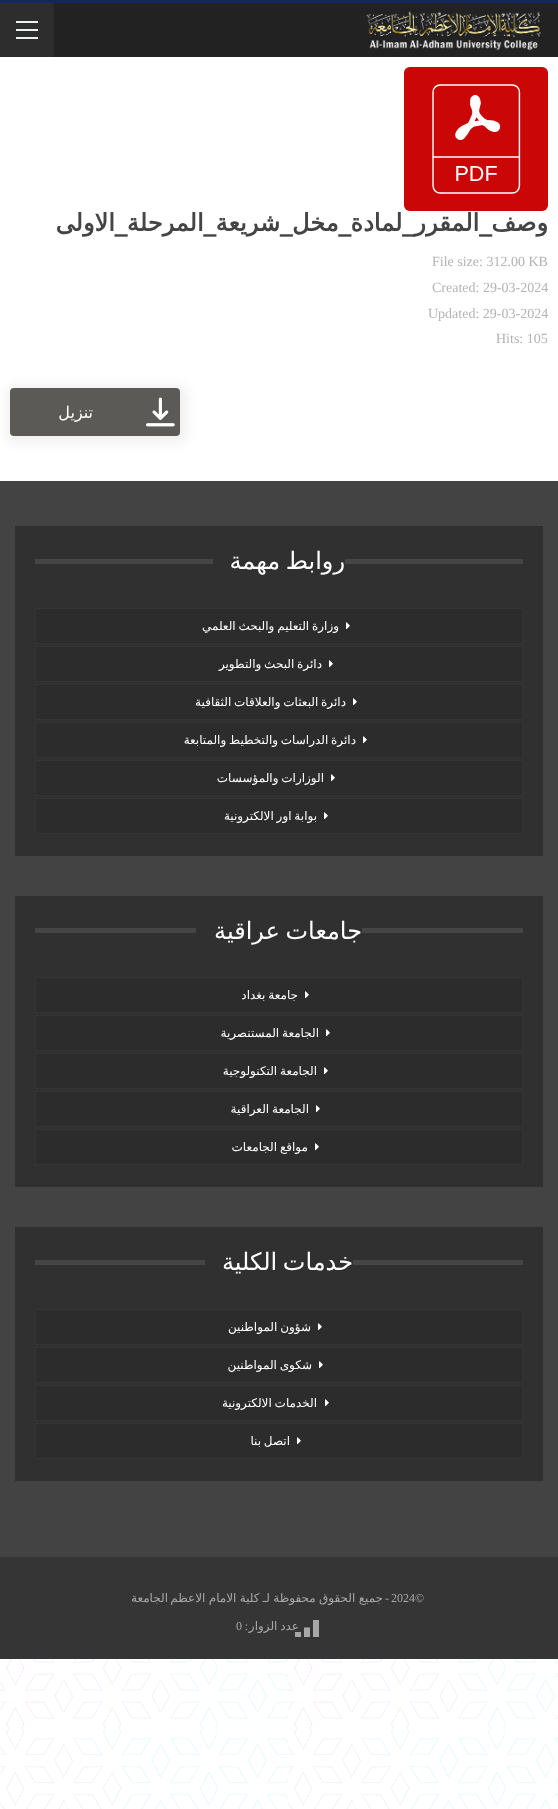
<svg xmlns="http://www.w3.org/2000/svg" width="558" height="1809">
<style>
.a{font:bold 24px DejaVu Sans;direction:rtl;fill:#444}
.b{font:14px Liberation Serif;fill:#b3b3b3}
.c{font:16px DejaVu Sans;direction:rtl;fill:#fff}
.d{font:24px DejaVu Sans;direction:rtl;fill:#fff}
.e{font:12px DejaVu Sans;direction:rtl;fill:#fff}
.f{font:12px Liberation Serif;fill:#a8a8a8}
.g{font:12px DejaVu Sans;direction:rtl;fill:#a8a8a8}
.h{font:12px Liberation Serif;direction:rtl;fill:#a8a8a8}
</style>
<rect width="100%" height="100%" fill="#fff"/>
<image href="1.png" x="0" y="1659" width="558" height="150"/>
<path fill="#132660" d="M0 0h558v3H0z"/>
<path fill="#222" d="M54 3h504v54H54z"/>
<image href="2.png" x="366" y="11" width="176" height="40"/>
<path fill="#2d2d2d" d="M0 3h53v54H0z"/>
<path fill="#2a2a2a" d="M53 3h1v54H53z"/>
<path fill="#ecf0f1" d="M16 29h22v2H16z"/>
<path fill="#ecf0f1" d="M16 21h22v2H16z"/>
<path fill="#ecf0f1" d="M16 37h22v2H16z"/>
<image href="3.png" x="404" y="67" width="144" height="144"/>
<rect fill="#f0f0f0" filter="blur(6px)" x="7" y="385" width="180" height="58" rx="9"/>
<rect fill="#5c5a57" x="10" y="388" width="170" height="48" rx="4"/>
<image href="4.png" x="146" y="397" width="29" height="30"/>
<path fill="#434343" d="M0 481h558v1076H0z"/>
<path fill="#303030" d="M15 526h528v330H15z"/>
<path fill="#454545" d="M35 559h488v5H35z"/>
<path fill="#303030" d="M213 559h132v5H213z"/>
<path fill="#2c2c2c" stroke="#343434" d="M35.5 608.5h487v35H35.5z"/>
<image href="5.png" x="346" y="622" width="4" height="8"/>
<path fill="#2c2c2c" stroke="#343434" d="M35.5 646.5h487v35H35.5z"/>
<image href="5.png" x="329" y="660" width="4" height="8"/>
<path fill="#2c2c2c" stroke="#343434" d="M35.5 684.5h487v35H35.5z"/>
<image href="5.png" x="353" y="698" width="4" height="8"/>
<path fill="#2c2c2c" stroke="#343434" d="M35.5 722.5h487v35H35.5z"/>
<image href="5.png" x="363" y="736" width="4" height="8"/>
<path fill="#2c2c2c" stroke="#343434" d="M35.5 760.5h487v35H35.5z"/>
<image href="5.png" x="331" y="774" width="4" height="8"/>
<path fill="#2c2c2c" stroke="#343434" d="M35.5 798.5h487v35H35.5z"/>
<image href="5.png" x="324" y="812" width="4" height="8"/>
<path fill="#303030" d="M15 896h528v291H15z"/>
<path fill="#454545" d="M35 928h488v5H35z"/>
<path fill="#303030" d="M196 928h166v5H196z"/>
<path fill="#2c2c2c" stroke="#343434" d="M35.5 977.5h487v35H35.5z"/>
<image href="5.png" x="305" y="991" width="4" height="8"/>
<path fill="#2c2c2c" stroke="#343434" d="M35.5 1015.5h487v35H35.5z"/>
<image href="5.png" x="326" y="1029" width="4" height="8"/>
<path fill="#2c2c2c" stroke="#343434" d="M35.5 1053.5h487v35H35.5z"/>
<image href="5.png" x="324" y="1067" width="4" height="8"/>
<path fill="#2c2c2c" stroke="#343434" d="M35.5 1091.5h487v35H35.5z"/>
<image href="5.png" x="316" y="1105" width="4" height="8"/>
<path fill="#2c2c2c" stroke="#343434" d="M35.5 1129.5h487v35H35.5z"/>
<image href="5.png" x="315" y="1143" width="4" height="8"/>
<path fill="#303030" d="M15 1227h528v254H15z"/>
<path fill="#454545" d="M35 1260h488v5H35z"/>
<path fill="#303030" d="M205 1260h148v5H205z"/>
<path fill="#2c2c2c" stroke="#343434" d="M35.5 1309.5h487v35H35.5z"/>
<image href="5.png" x="318" y="1323" width="4" height="8"/>
<path fill="#2c2c2c" stroke="#343434" d="M35.5 1347.5h487v35H35.5z"/>
<image href="5.png" x="319" y="1361" width="4" height="8"/>
<path fill="#2c2c2c" stroke="#343434" d="M35.5 1385.5h487v35H35.5z"/>
<image href="5.png" x="325" y="1399" width="4" height="8"/>
<path fill="#2c2c2c" stroke="#343434" d="M35.5 1423.5h487v35H35.5z"/>
<image href="5.png" x="297" y="1437" width="4" height="8"/>
<path fill="#353535" d="M0 1557h558v102H0z"/>
<image href="6.png" x="295" y="1620" width="24" height="17"/>
<text class="a" x="548" y="231">وصف_المقرر_لمادة_مخل_شريعة_المرحلة_الاولى</text>
<text class="b" x="432" y="266">File size: 312.00 KB</text>
<text class="b" x="432" y="292">Created: 29-03-2024</text>
<text class="b" x="428" y="318">Updated: 29-03-2024</text>
<text class="b" x="496" y="343">Hits: 105</text>
<text class="c" x="93" y="418">تنزيل</text>
<text class="d" x="345" y="569" word-spacing="-2">روابط مهمة</text>
<text class="e" x="339" y="630" word-spacing="-1">وزارة التعليم والبحث العلمي</text>
<text class="e" x="322" y="668" word-spacing="-1">دائرة البحث والتطوير</text>
<text class="e" x="346" y="706" word-spacing="-1">دائرة البعثات والعلاقات الثقافية</text>
<text class="e" x="356" y="744" word-spacing="-1">دائرة الدراسات والتخطيط والمتابعة</text>
<text class="e" x="324" y="782" word-spacing="-1">الوزارات والمؤسسات</text>
<text class="e" x="317" y="820" word-spacing="-1">بوابة اور الالكترونية</text>
<text class="d" x="362" y="939" word-spacing="-2">جامعات عراقية</text>
<text class="e" x="298" y="999" word-spacing="-1">جامعة بغداد</text>
<text class="e" x="319" y="1037" word-spacing="-1">الجامعة المستنصرية</text>
<text class="e" x="317" y="1075" word-spacing="-1">الجامعة التكنولوجية</text>
<text class="e" x="309" y="1113" word-spacing="-1">الجامعة العراقية</text>
<text class="e" x="308" y="1151" word-spacing="-1">مواقع الجامعات</text>
<text class="d" x="353" y="1270" word-spacing="-2">خدمات الكلية</text>
<text class="e" x="311" y="1331" word-spacing="-1">شؤون المواطنين</text>
<text class="e" x="312" y="1369" word-spacing="-1">شكوى المواطنين</text>
<text class="e" x="317" y="1407" word-spacing="-1">الخدمات الالكترونية</text>
<text class="e" x="290" y="1445" word-spacing="-1">اتصل بنا</text>
<text class="f" x="391" y="1602">2024©</text>
<text class="g" x="383" y="1602" word-spacing="-0.5">جميع الحقوق محفوظة لـ كلية الامام الاعظم</text>
<text class="h" x="389" y="1602">-</text>
<text class="g" x="168" y="1602">الجامعة</text>
<text class="f" x="236" y="1630">0</text>
<text class="h" x="248" y="1630">:</text>
<text class="g" x="299" y="1630" word-spacing="-1">عدد الزوار</text>
</svg>
